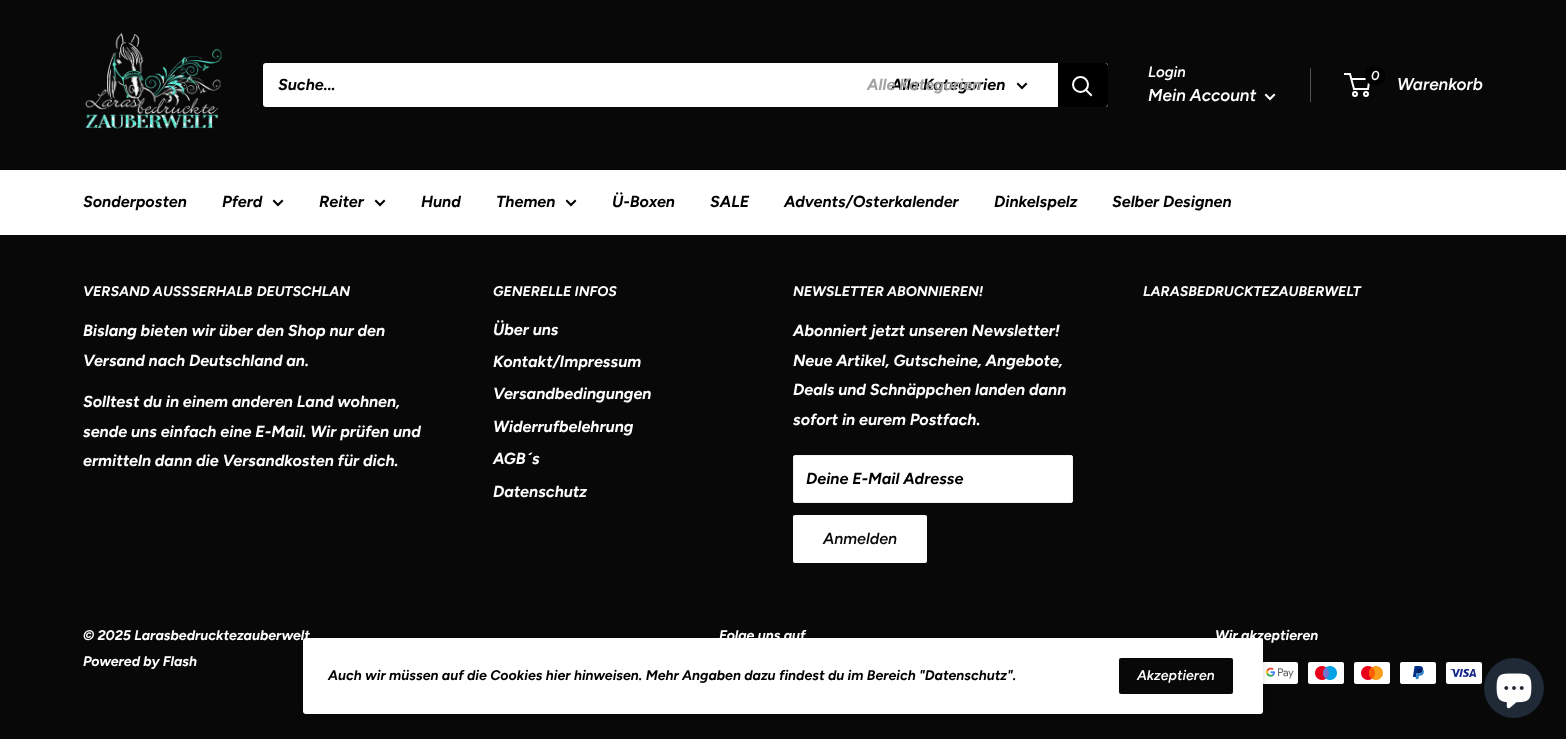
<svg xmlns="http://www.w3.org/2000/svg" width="1566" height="739">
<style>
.a{font:italic bold 16px Figtree;fill:#000}
.b{font:italic bold 16px Figtree;fill:#a2a2a2}
.c{font:italic 600 15px Figtree;fill:#fff}
.d{font:italic 600 17px Figtree;fill:#fff}
.e{font:italic 600 13px Figtree;fill:#fff}
.f{font:italic bold 14px Figtree;fill:#fff}
.g{font:italic bold 16px Figtree;fill:#fff}
.h{font:italic 600 16px Figtree;fill:#080808}
.i{font:italic bold 14px Figtree;fill:#000}
.j{font:italic 600 14px Figtree;fill:#fff}
</style>
<rect width="100%" height="100%" fill="#080808"/>
<image href="1.png" x="85" y="33" width="138" height="96"/>
<rect fill="#fff" x="263" y="63" width="845" height="44" rx="3"/>
<path fill="none" stroke="#000" stroke-width="2" stroke-linecap="square" d="M1026 84l-4 4l-4-4"/>
<path fill="#000" d="M1058 63h47c1.5 0 3 1.5 3 3v38c0 1.5-1.5 3-3 3h-47z"/>
<path fill="none" stroke="#fff" stroke-width="2" stroke-linecap="square" d="M1091 95l-5-5"/>
<circle fill="none" stroke="#fff" stroke-width="2" cx="1080.5" cy="84.5" r="7.5"/>
<path fill="#525252" d="M1310 68h1v34H1310z"/>
<path fill="none" stroke="#fff" stroke-width="2" stroke-linecap="square" d="M1274 95l-4 4l-4-4"/>
<circle fill="none" stroke="#fff" stroke-width="2" cx="1355" cy="94" r="2"/>
<circle fill="none" stroke="#fff" stroke-width="2" cx="1366" cy="94" r="2"/>
<path fill="none" stroke="#fff" stroke-width="2" d="M1351.5 79h18l-1.5 10h-14l-4-15h-6"/>
<circle fill="#000" cx="1375" cy="76" r="10"/>
<path fill="#fff" d="M0 170h1566v65H0z"/>
<path fill="none" stroke="#000" stroke-width="2" stroke-linecap="square" d="M282 201l-4 4l-4-4"/>
<path fill="none" stroke="#000" stroke-width="2" stroke-linecap="square" d="M384 201l-4 4l-4-4"/>
<path fill="none" stroke="#000" stroke-width="2" stroke-linecap="square" d="M575 201l-4 4l-4-4"/>
<rect fill="#fff" stroke="#f2f2f2" x="793.5" y="455.5" width="279" height="47" rx="1.5"/>
<rect fill="#fff" x="793" y="515" width="134" height="48" rx="2"/>
<image href="2.png" x="1263" y="662" width="35" height="22"/>
<image href="3.png" x="1308" y="662" width="36" height="22"/>
<image href="4.png" x="1354" y="662" width="36" height="22"/>
<image href="5.png" x="1400" y="662" width="36" height="22"/>
<image href="6.png" x="1446" y="662" width="36" height="22"/>
<rect fill="#0000001a" filter="blur(2px)" x="302" y="638" width="962" height="78" rx="4"/>
<rect fill="#fff" x="303" y="638" width="960" height="76" rx="3"/>
<rect fill="#080808" x="1119" y="658" width="114" height="36" rx="2"/>
<circle fill="#202a36" cx="1514" cy="688" r="30"/>
<image href="7.png" x="1496" y="673" width="36" height="36"/>
<text class="a" x="278" y="90">Suche...</text>
<text class="a" x="891" y="90">Alle Kategorien</text>
<text class="b" x="867" y="90">Alle Kategorien</text>
<text class="c" x="1148" y="77">Login</text>
<text class="d" x="1148" y="101">Mein Account</text>
<text class="e" x="1371" y="80">0</text>
<text class="d" x="1397" y="90">Warenkorb</text>
<text class="a" x="83" y="207">Sonderposten</text>
<text class="a" x="222" y="207">Pferd</text>
<text class="a" x="319" y="207">Reiter</text>
<text class="a" x="421" y="207">Hund</text>
<text class="a" x="496" y="207">Themen</text>
<text class="a" x="612" y="207">Ü-Boxen</text>
<text class="a" x="710" y="207">SALE</text>
<text class="a" x="784" y="207">Advents/Osterkalender</text>
<text class="a" x="994" y="207">Dinkelspelz</text>
<text class="a" x="1112" y="207">Selber Designen</text>
<text class="f" x="83" y="296">VERSAND AUSS</text>
<text class="f" x="190" y="296" word-spacing="1">SERHALB DEUTSCHLAN</text>
<text class="g" x="83" y="336">Bislang bieten wir über den Shop nur den</text>
<text class="g" x="83" y="366">Versand nach Deutschland an.</text>
<text class="g" x="83" y="407">Solltest du in einem anderen Land wohnen,</text>
<text class="g" x="83" y="437">sende uns einfach eine E-Mail. Wir prüfen und</text>
<text class="g" x="83" y="466">ermitteln dann die Versandkosten für dich.</text>
<text class="f" x="493" y="296">GENERELLE INFOS</text>
<text class="g" x="493" y="335">Über uns</text>
<text class="g" x="493" y="367">Kontakt/Impressum</text>
<text class="g" x="493" y="399">Versandbedingungen</text>
<text class="g" x="493" y="432">Widerrufbelehrung</text>
<text class="g" x="493" y="464">AGB´s</text>
<text class="g" x="493" y="497">Datenschutz</text>
<text class="f" x="793" y="296">NEWSLETTER ABONNIEREN!</text>
<text class="g" x="793" y="336">Abonniert jetzt unseren Newsletter!</text>
<text class="g" x="793" y="366">Neue Artikel, Gutscheine, Angebote,</text>
<text class="g" x="793" y="395">Deals und Schnäppchen landen dann</text>
<text class="g" x="793" y="425">sofort in eurem Postfach.</text>
<text class="a" x="806" y="484">Deine E-Mail Adresse</text>
<text class="h" x="823" y="544">Anmelden</text>
<text class="f" x="1143" y="296">LARASBEDRUCKTEZAUBERWELT</text>
<text class="f" x="83" y="640">© 2025 Larasbedrucktezauberwelt</text>
<text class="f" x="83" y="666">Powered by Flash</text>
<text class="f" x="719" y="640">Folge uns auf</text>
<text class="f" x="1215" y="640">Wir akzeptieren</text>
<text class="i" x="328" y="680">Auch wir müssen auf die Cookies hier hinweisen. Mehr Angaben dazu findest du im Bereich "Datenschutz".</text>
<text class="j" x="1137" y="680">Akzeptieren</text>
</svg>
